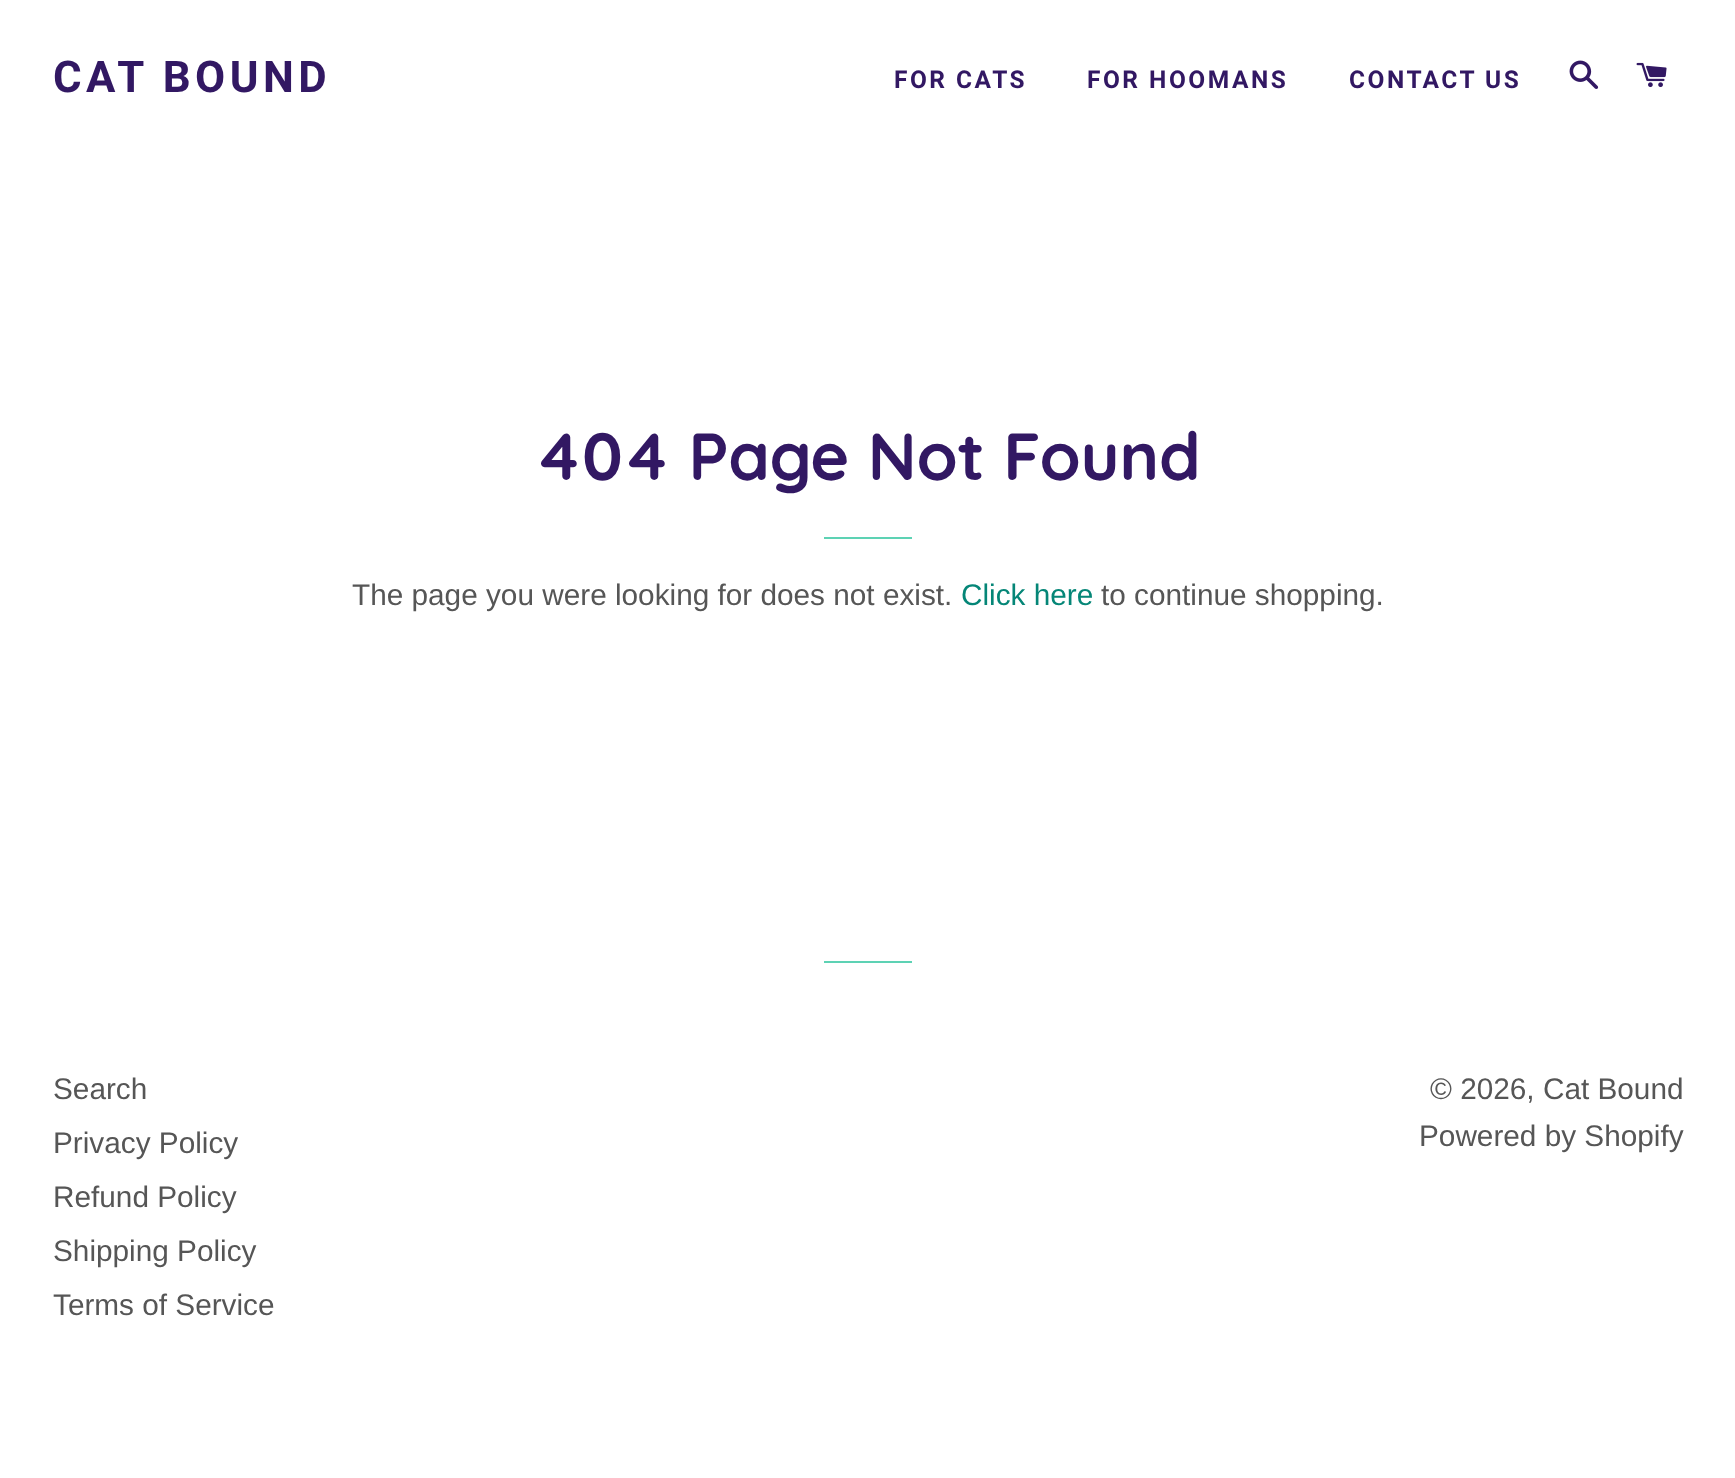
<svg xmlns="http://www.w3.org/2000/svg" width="1735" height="1478">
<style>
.a{font:bold 43.75px Roboto;letter-spacing:4.4px;fill:#321863}
.b{font:bold 24.5px Roboto;letter-spacing:2.5px;fill:#321863}
.c{font:bold 66.5px Quicksand;fill:#321863}
.d{font:29.75px Liberation Sans;fill:#565656}
.e{font:29.75px Liberation Sans;fill:#058677}
</style>
<rect width="100%" height="100%" fill="#fff"/>
<image href="1.png" x="1569" y="60" width="30" height="29"/>
<image href="2.png" x="1636" y="62" width="31" height="26"/>
<path fill="#5dd2b4" d="M824 537h88v2H824z"/>
<path fill="#5dd2b4" d="M824 961h88v2H824z"/>
<text class="a" x="53" y="92">CAT BOUND</text>
<text class="b" x="894" y="88">FOR CATS</text>
<text class="b" x="1087" y="88">FOR HOOMANS</text>
<text class="b" x="1349" y="88">CONTACT US</text>
<text class="c" x="535" y="480">404 Page Not Found</text>
<text class="d" x="352" y="605">The page you were looking for does not exist.</text>
<text class="e" x="961" y="605">Click here</text>
<text class="d" x="1101" y="605">to continue shopping.</text>
<text class="d" x="53" y="1099">Search</text>
<text class="d" x="53" y="1153">Privacy Policy</text>
<text class="d" x="53" y="1207">Refund Policy</text>
<text class="d" x="53" y="1261">Shipping Policy</text>
<text class="d" x="53" y="1315">Terms of Service</text>
<text class="d" x="1430" y="1099">© 2026, Cat Bound</text>
<text class="d" x="1419" y="1146">Powered by Shopify</text>
</svg>
